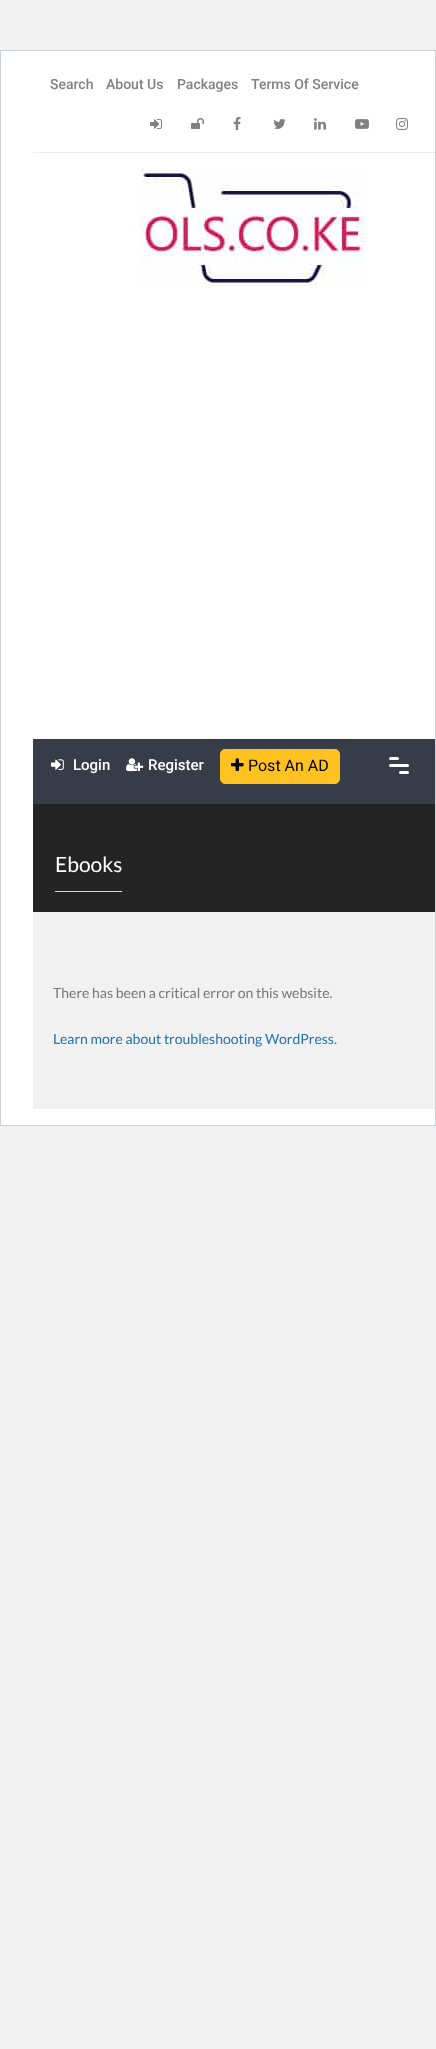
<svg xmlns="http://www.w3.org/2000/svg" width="436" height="2049">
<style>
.a{font:500 14px Roboto;fill:#818181}
.b{font:500 15px Roboto;fill:#fff}
.c{font:16px Roboto;fill:#000}
.d{font:21px Lato;fill:#fff}
.e{font:14px Lato;fill:#777}
.f{font:14px Lato;fill:#2271b1}
</style>
<rect width="100%" height="100%" fill="#f1f1f1"/>
<path fill="#fff" stroke="#ccd0d4" d="M0.5 50.5h435v1075H0.5z"/>
<path fill="#eee" d="M33 152h402v1H33z"/>
<image href="1.png" x="150" y="119" width="12" height="10"/>
<image href="2.png" x="191" y="118" width="13" height="11"/>
<image href="3.png" x="233" y="117" width="8" height="13"/>
<image href="4.png" x="273" y="119" width="13" height="10"/>
<image href="5.png" x="314" y="118" width="12" height="12"/>
<image href="6.png" x="355" y="119" width="14" height="10"/>
<image href="7.png" x="396" y="118" width="12" height="12"/>
<image href="8.png" x="140" y="168" width="226" height="120"/>
<path fill="#363c48" d="M33 739h402v65H33z"/>
<image href="9.png" x="51" y="759" width="13" height="11"/>
<image href="10.png" x="126" y="758" width="18" height="14"/>
<rect fill="#ffc220" stroke="#ffc220" x="220.5" y="749.5" width="119" height="34" rx="4.5"/>
<image href="11.png" x="231" y="758" width="13" height="13"/>
<rect fill="#fff" x="389" y="757" width="10" height="3" rx="1.5"/>
<rect fill="#fff" x="389" y="764" width="20" height="3" rx="1.5"/>
<rect fill="#fff" x="399" y="771" width="10" height="3" rx="1.5"/>
<path fill="#242424" d="M33 804h402v108H33z"/>
<path fill="#dadada" d="M55 891h67v1H55z"/>
<path fill="#f1f1f1" d="M33 912h402v197H33z"/>
<text class="a" x="50" y="89">Search</text>
<text class="a" x="106" y="89">About Us</text>
<text class="a" x="177" y="89">Packages</text>
<text class="a" x="251" y="89">Terms Of Service</text>
<text class="b" x="73" y="770">Login</text>
<text class="b" x="148" y="770">Register</text>
<text class="c" x="248" y="771">Post An AD</text>
<text class="d" x="55" y="872">Ebooks</text>
<text class="e" x="53" y="998">There has been a critical error on this website.</text>
<text class="f" x="53" y="1044">Learn more about troubleshooting WordPress.</text>
</svg>
